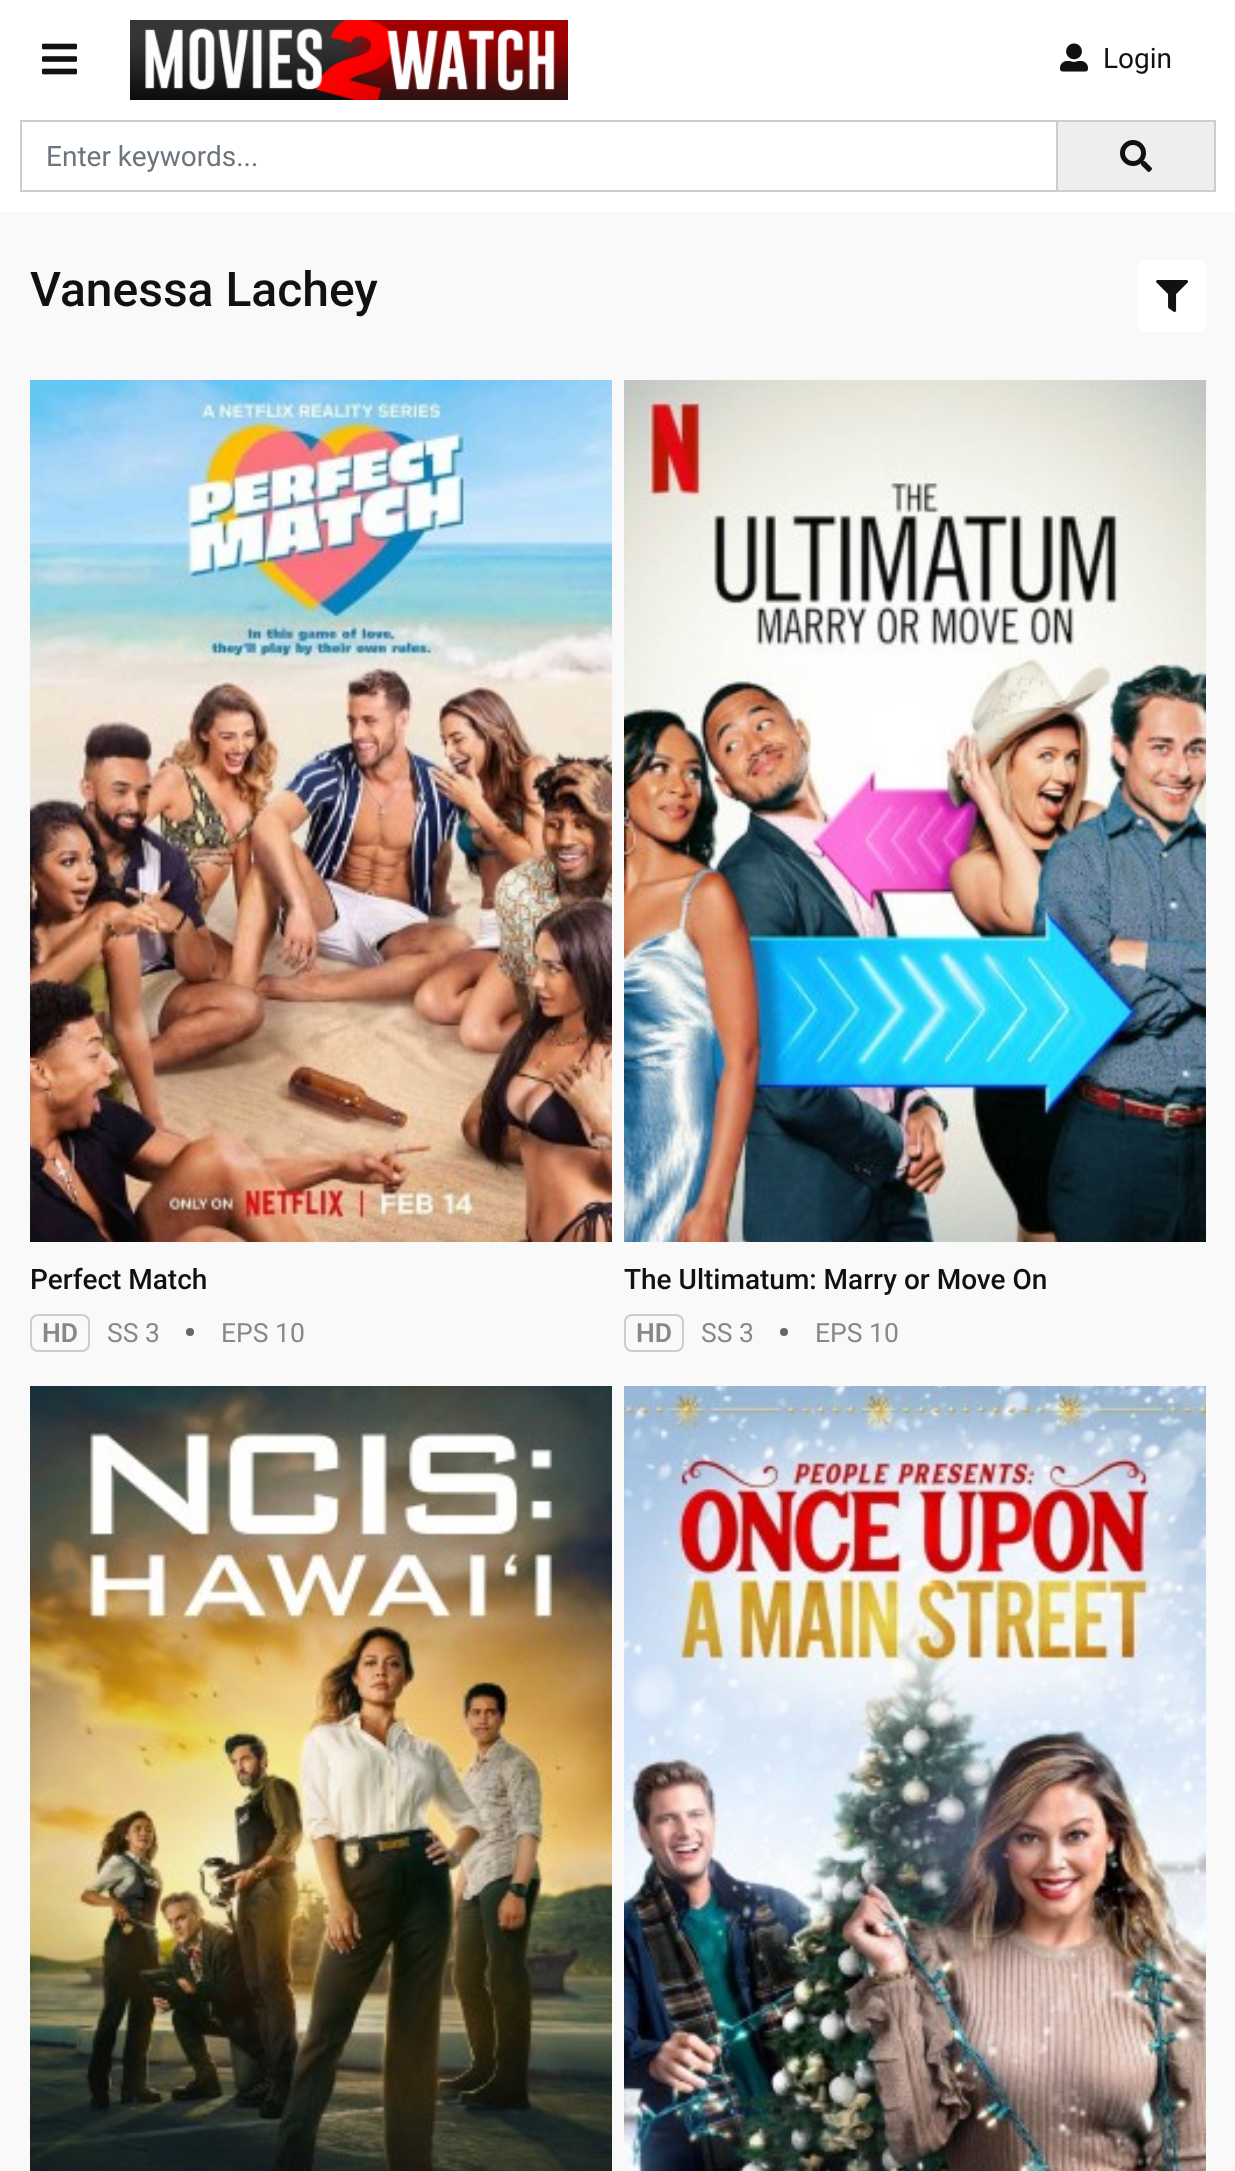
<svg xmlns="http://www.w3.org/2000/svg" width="1235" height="2171">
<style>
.a{font:28px Roboto;fill:#111}
.b{font:28px Roboto;fill:#6c757d}
.c{font:500 48px Roboto;fill:#111}
.d{font:500 28px Roboto;fill:#111}
.e{font:600 26.5px Roboto;fill:#888}
.f{font:26.5px Roboto;fill:#888}
</style>
<rect width="100%" height="100%" fill="#f9f9f9"/>
<path fill="#fff" d="M0 0h1235v212H0z"/>
<image href="1.png" x="42" y="43" width="35" height="32"/>
<image href="2.png" x="130" y="20" width="438" height="80"/>
<image href="3.png" x="1060" y="43" width="28" height="29"/>
<path fill="none" stroke="#ccc" stroke-width="2" d="M21 121h1194v70H21z"/>
<path fill="#eee" stroke="#ccc" stroke-width="2" d="M1057 121h158v70H1057z"/>
<image href="4.png" x="1120" y="140" width="32" height="32"/>
<rect fill="#fff" x="1138" y="260" width="68" height="72" rx="6"/>
<image href="5.png" x="1156" y="280" width="32" height="32"/>
<image href="6.png" x="30" y="380" width="582" height="862"/>
<rect fill="none" stroke="#ccc" stroke-width="2" x="31" y="1315" width="58" height="36" rx="7"/>
<circle fill="#666" cx="190" cy="1332" r="4"/>
<image href="7.png" x="624" y="380" width="582" height="862"/>
<rect fill="none" stroke="#ccc" stroke-width="2" x="625" y="1315" width="58" height="36" rx="7"/>
<circle fill="#666" cx="784" cy="1332" r="4"/>
<image href="8.png" x="30" y="1386" width="582" height="785"/>
<image href="9.png" x="624" y="1386" width="582" height="785"/>
<text class="a" x="1103" y="68">Login</text>
<text class="b" x="46" y="166">Enter keywords...</text>
<text class="c" x="30" y="306">Vanessa Lachey</text>
<text class="d" x="30" y="1289">Perfect Match</text>
<text class="e" x="42" y="1342">HD</text>
<text class="f" x="107" y="1342">SS 3</text>
<text class="f" x="221" y="1342">EPS 10</text>
<text class="d" x="624" y="1289">The Ultimatum: Marry or Move On</text>
<text class="e" x="636" y="1342">HD</text>
<text class="f" x="701" y="1342">SS 3</text>
<text class="f" x="815" y="1342">EPS 10</text>
</svg>
